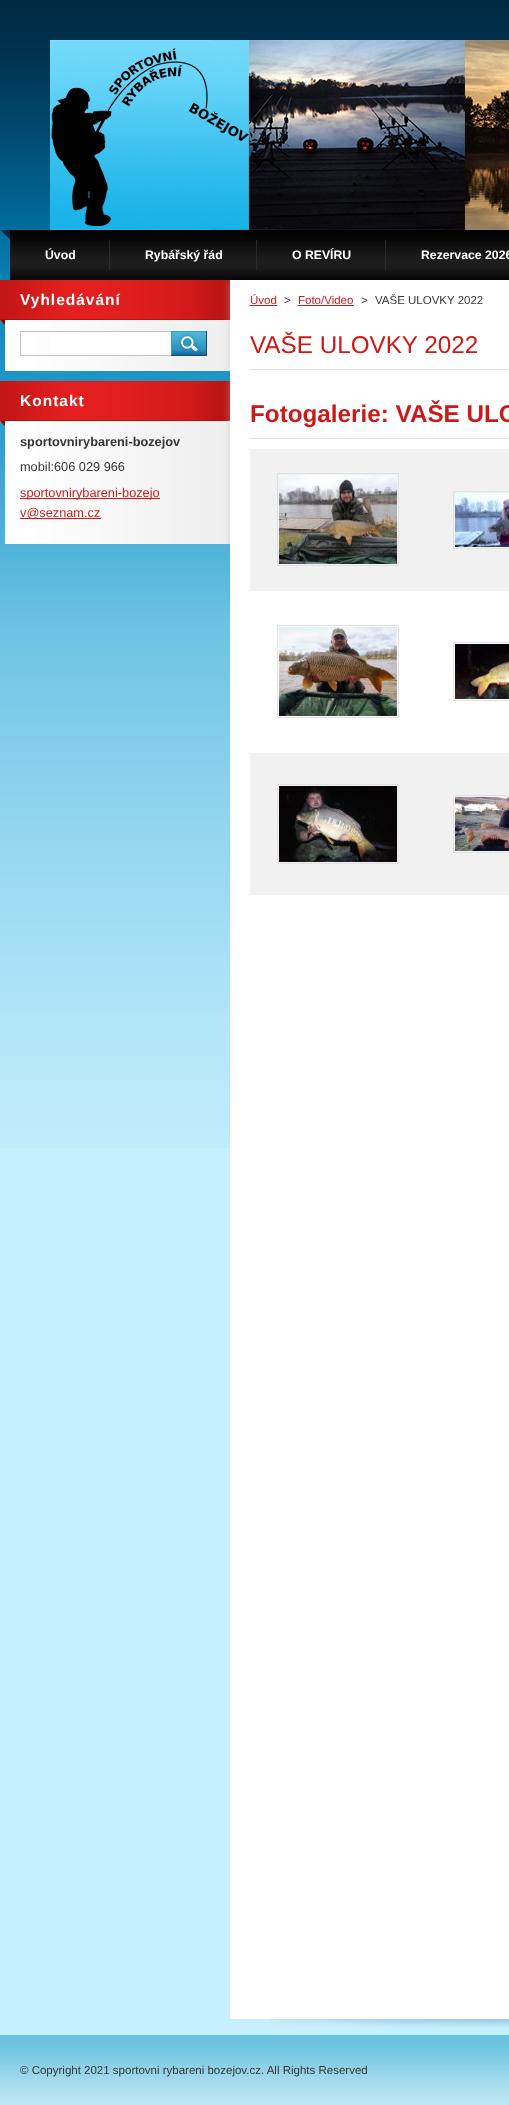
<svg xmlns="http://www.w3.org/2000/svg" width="509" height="2105">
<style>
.a{font:bold 12.25px Liberation Sans;fill:#fff}
.b{font:bold 15.5px Liberation Sans;letter-spacing:1px;fill:#fff}
.c{font:bold 12.75px Liberation Sans;fill:#363636}
.d{font:12.75px Liberation Sans;fill:#363636}
.e{font:12.75px Liberation Sans;fill:#ce1919}
.f{font:11.5px Liberation Sans;fill:#ce1919}
.g{font:11.5px Liberation Sans;fill:#363636}
.h{font:24.25px Liberation Sans;fill:#ce1919}
.i{font:bold 24.25px Liberation Sans;fill:#ce1919}
</style>
<rect width="100%" height="100%" fill="#c6f0fe"/>
<image href="1.png" x="0" y="0" width="509" height="1148"/>
<image href="2.png" x="50" y="40" width="459" height="190"/>
<image href="3.png" x="0" y="230" width="509" height="50"/>
<path fill="#2a2a2a" d="M109 240h1v30H109z"/>
<path fill="#2a2a2a" d="M256 240h1v30H256z"/>
<path fill="#2a2a2a" d="M385 240h1v30H385z"/>
<image href="4.png" x="5" y="325" width="225" height="46"/>
<image href="5.png" x="0" y="280" width="230" height="45"/>
<path fill="#fff" d="M51 332h120v23H51z"/>
<path fill="none" stroke="#c1c1c1" d="M20.5 331.5h151v24H20.5z"/>
<image href="6.png" x="171" y="331" width="36" height="25"/>
<image href="7.png" x="5" y="426" width="225" height="118"/>
<image href="8.png" x="0" y="381" width="230" height="45"/>
<path fill="#ce1919" d="M20 498h140v1H20z"/>
<path fill="#ce1919" d="M20 518h81v1H20z"/>
<image href="9.png" x="270" y="2019" width="239" height="9"/>
<path fill="#fff" d="M230 280h279v1739H230z"/>
<path fill="#ce1919" d="M250 305h27v1H250z"/>
<path fill="#ce1919" d="M298 305h56v1H298z"/>
<path fill="#e1e1e1" d="M250 369h259v1H250z"/>
<path fill="#e1e1e1" d="M250 438h259v1H250z"/>
<path fill="#f1f1f1" d="M250 449h259v142H250z"/>
<path fill="none" stroke="#e1e1e1" d="M277.5 473.5h121v92H277.5z"/>
<image href="10.png" x="279" y="475" width="118" height="89"/>
<path fill="none" stroke="#e1e1e1" d="M453.5 491.5h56v57H453.5z"/>
<image href="11.png" x="455" y="493" width="54" height="54"/>
<path fill="none" stroke="#e1e1e1" d="M277.5 625.5h121v92H277.5z"/>
<image href="12.png" x="279" y="627" width="118" height="89"/>
<path fill="none" stroke="#e1e1e1" d="M453.5 642.5h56v58H453.5z"/>
<image href="13.png" x="455" y="644" width="54" height="55"/>
<path fill="#f1f1f1" d="M250 753h259v142H250z"/>
<path fill="none" stroke="#e1e1e1" d="M277.5 784.5h121v79H277.5z"/>
<image href="14.png" x="279" y="786" width="118" height="76"/>
<path fill="none" stroke="#e1e1e1" d="M453.5 795.5h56v57H453.5z"/>
<image href="15.png" x="455" y="797" width="54" height="54"/>
<image href="16.png" x="0" y="2035" width="509" height="70"/>
<text class="a" x="45" y="259">Úvod</text>
<text class="a" x="145" y="259">Rybářský řád</text>
<text class="a" x="292" y="259">O REVÍRU</text>
<text class="a" x="421" y="259">Rezervace 2026</text>
<text class="b" x="20" y="305">Vyhledávání</text>
<text class="b" x="20" y="406">Kontakt</text>
<text class="c" x="20" y="446">sportovnirybareni-bozejov</text>
<text class="d" x="20" y="471">mobil:606 029 966</text>
<text class="e" x="20" y="497">sportovnirybareni-bozejo</text>
<text class="e" x="20" y="517">v@seznam.cz</text>
<text class="f" x="250" y="304">Úvod</text>
<text class="g" x="284" y="304">&gt;</text>
<text class="f" x="298" y="304">Foto/Video</text>
<text class="g" x="361" y="304">&gt;</text>
<text class="g" x="375" y="304">VAŠE ULOVKY 2022</text>
<text class="h" x="250" y="353">VAŠE ULOVKY 2022</text>
<text class="i" x="250" y="422">Fotogalerie: VAŠE ULO</text>
<text class="g" x="20" y="2074">© Copyright 2021 sportovni rybareni bozejov.cz. All Rights Reserved</text>
</svg>
